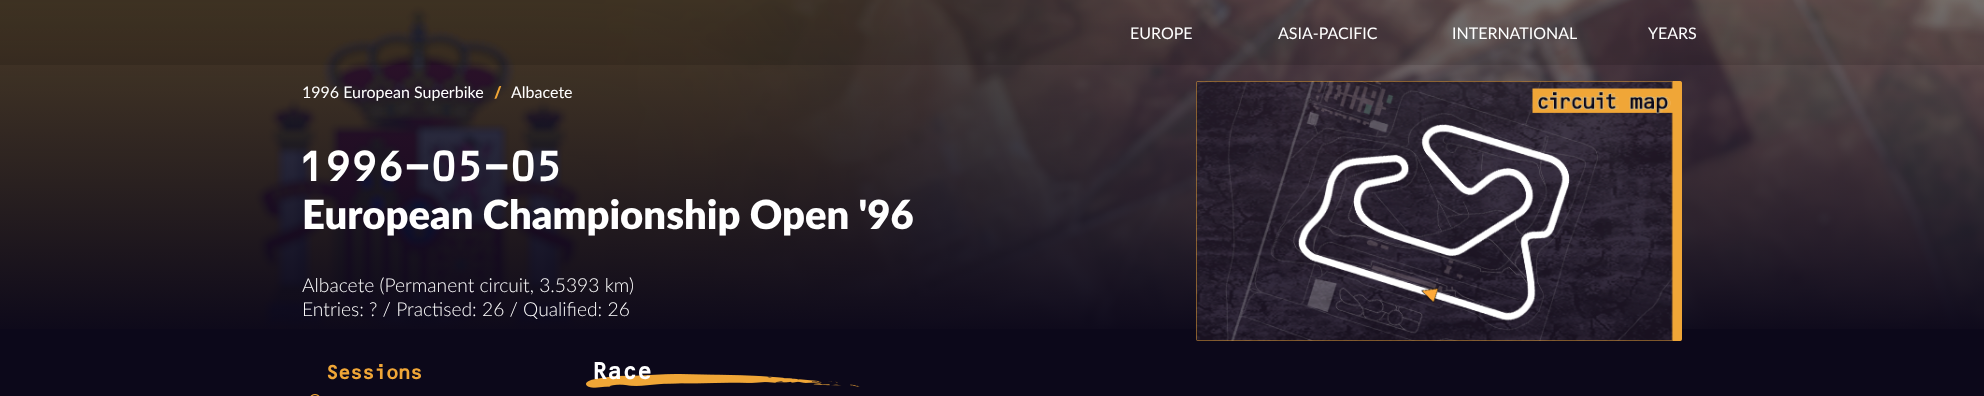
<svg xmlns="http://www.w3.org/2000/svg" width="1984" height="396">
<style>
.a{font:16px Lato;fill:#fff}
.b{font:900 16px Lato;fill:#f0a637}
.c{font:bold 40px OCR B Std;letter-spacing:-2.4px;fill:#fff}
.d{font:900 40px Lato;fill:#fff}
.e{font:300 19.25px Lato;fill:#fff}
.f{font:bold 20px OCR B Std;letter-spacing:-2.4px;fill:#f0a637}
.g{font:bold 24px OCR B Std;letter-spacing:-2.4px;fill:#fff}
</style>
<rect width="100%" height="100%" fill="#0c081a"/>
<image href="1.png" x="0" y="0" width="1984" height="329"/>
<path fill="#0000001f" d="M0 0h1984v65H0z"/>
<image href="2.png" x="1196" y="81" width="486" height="260"/>
<image href="3.png" x="310" y="394" width="10" height="2"/>
<image href="4.png" x="586" y="374" width="274" height="14"/>
<text class="a" x="1130" y="39">EUROPE</text>
<text class="a" x="1278" y="39">ASIA-PACIFIC</text>
<text class="a" x="1452" y="39">INTERNATIONAL</text>
<text class="a" x="1648" y="39">YEARS</text>
<text class="a" x="302" y="98">1996 European Superbike</text>
<text class="b" x="494" y="98">/</text>
<text class="a" x="511" y="98">Albacete</text>
<text class="c" x="297" y="181">1996-05-05</text>
<text class="d" x="302" y="229">European Championship Open '96</text>
<text class="e" x="302" y="292">Albacete (Permanent circuit, 3.5393 km)</text>
<text class="e" x="302" y="316">Entries: ? / Practised: 26 / Qualified: 26</text>
<text class="f" x="325" y="379">Sessions</text>
<text class="g" x="591" y="379">Race</text>
</svg>
